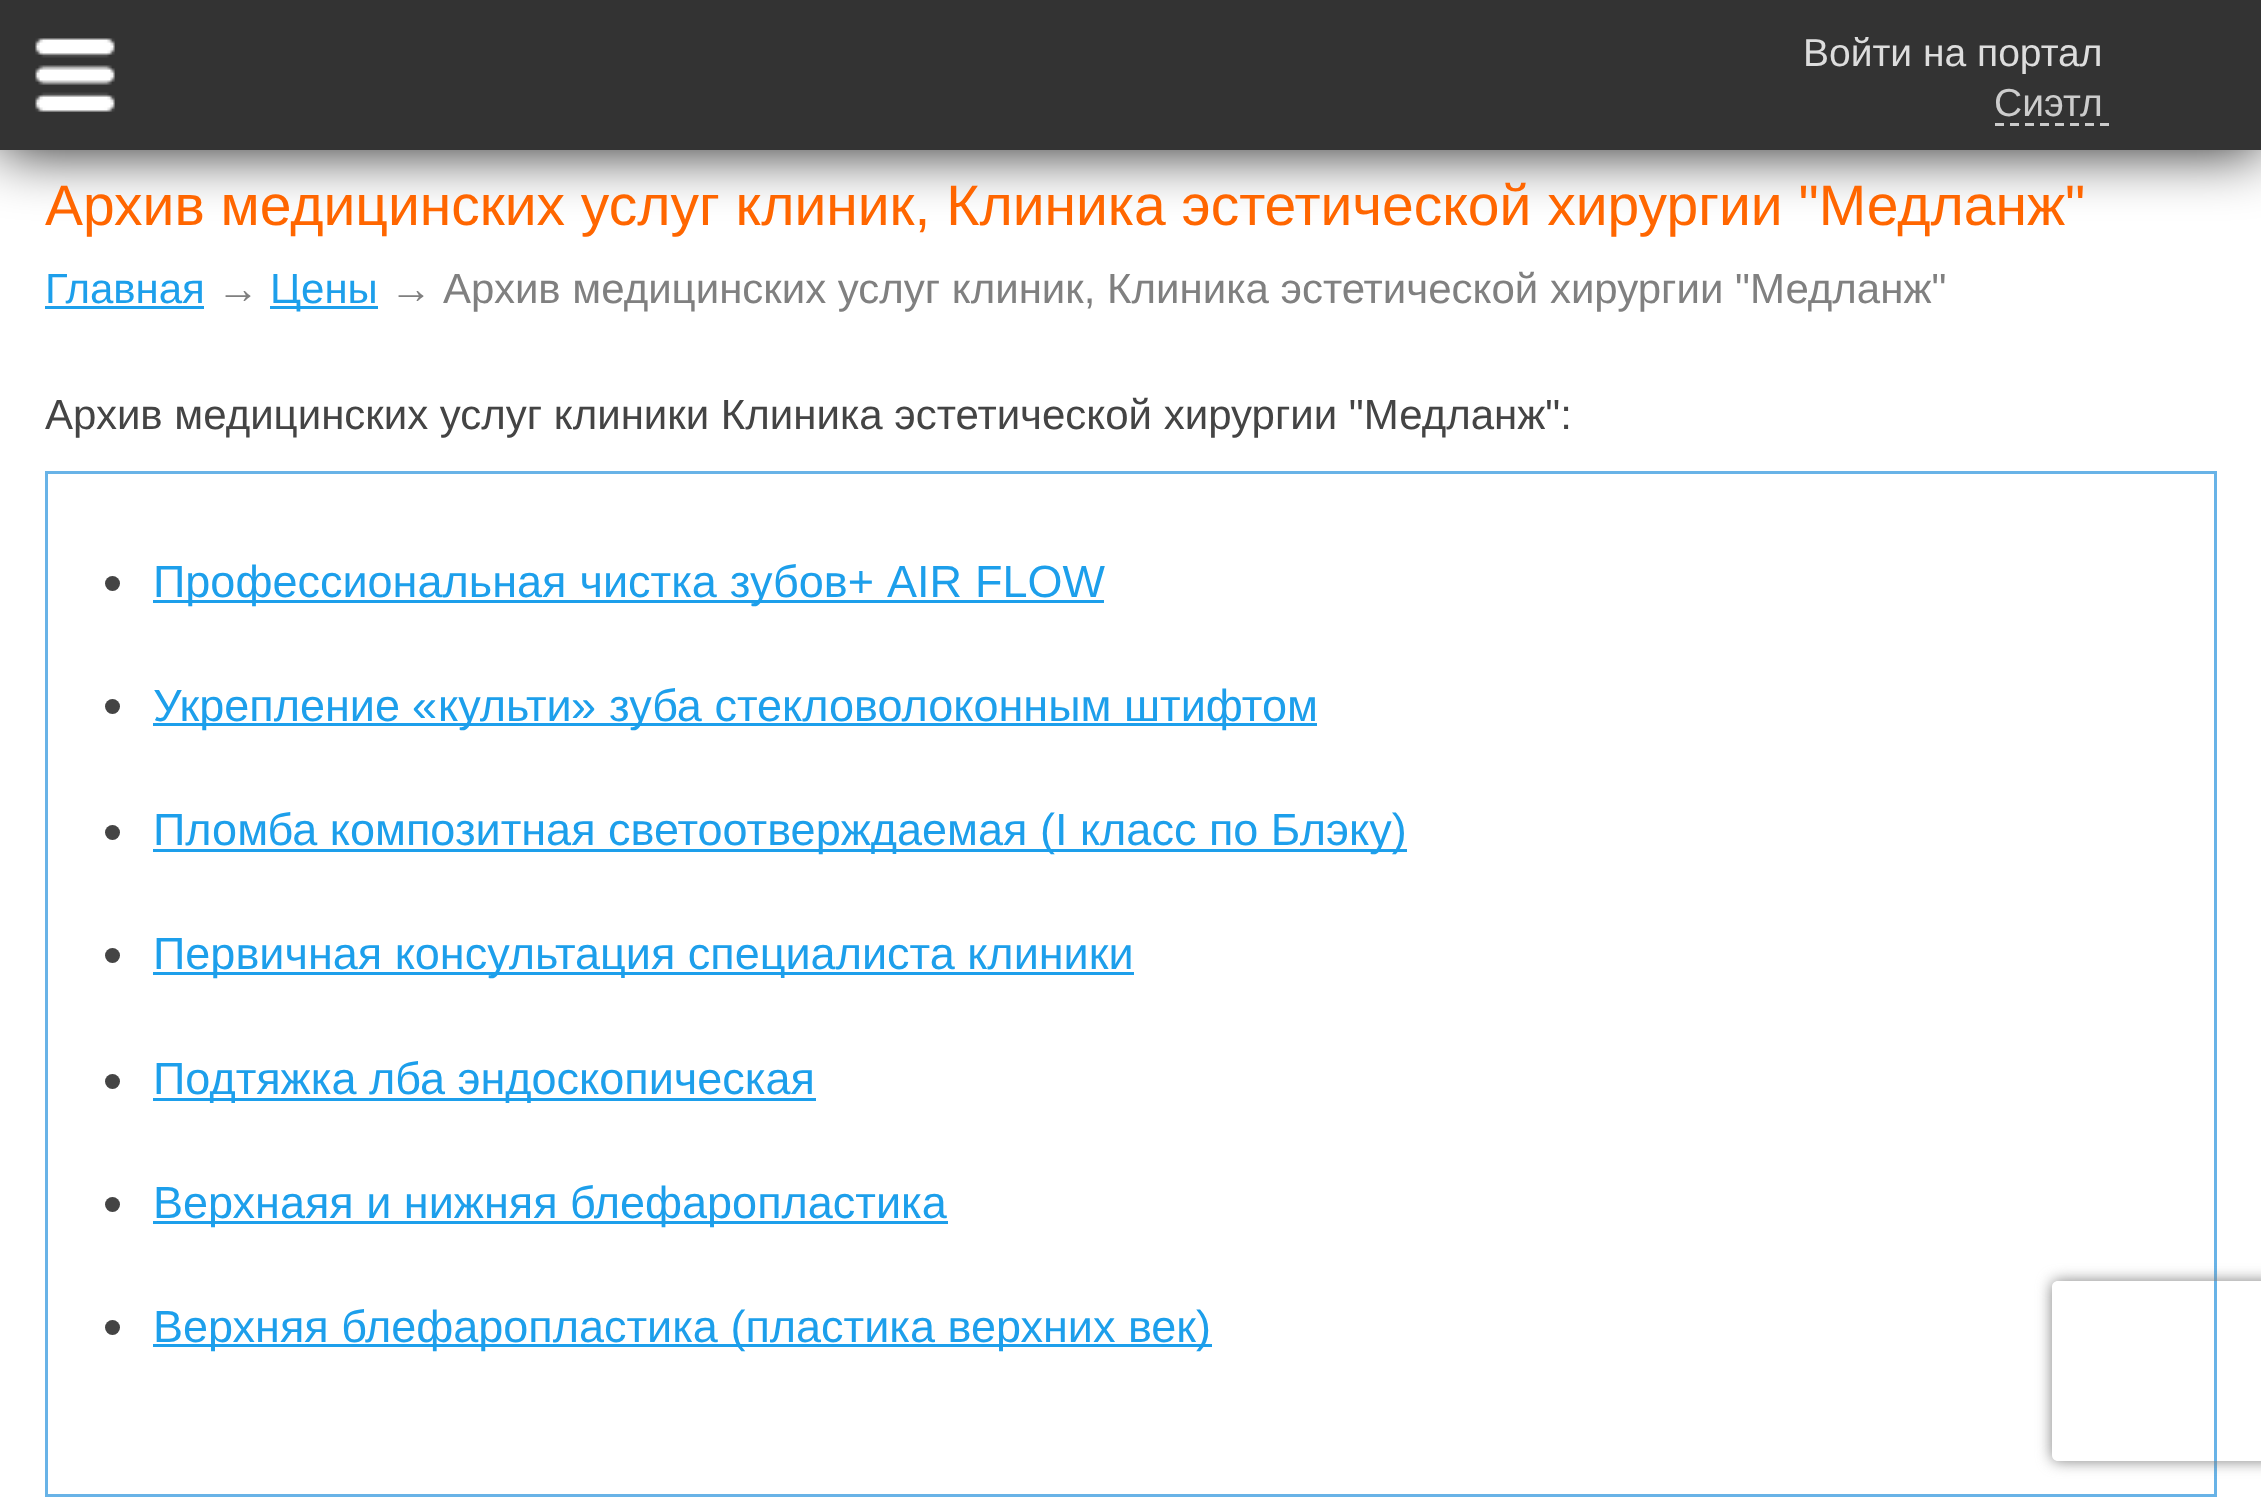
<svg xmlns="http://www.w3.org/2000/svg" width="2261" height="1503">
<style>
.a{font:39px Arimo;fill:#ddd}
.b{font:39px Arimo;fill:#ccc}
.c{font:57px Arimo;fill:#f60}
.d{font:42px Arimo;fill:#1d9feb}
.e{font:42px Liberation Sans;fill:#808080}
.f{font:42px Arimo;fill:#808080}
.g{font:42px Arimo;fill:#444}
.h{font:45px Arimo;fill:#1d9feb}
.i{font:45px Liberation Sans;fill:#1d9feb}
</style>
<defs>
<clipPath id="clip1"><path d="M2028 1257h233v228h-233zm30 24h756c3.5 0 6 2.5 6 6v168c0 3.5-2.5 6-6 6h-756c-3.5 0-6-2.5-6-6v-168c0-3.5 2.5-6 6-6z" clip-rule="evenodd"/></clipPath>
</defs>
<rect width="100%" height="100%" fill="#fff"/>
<path fill="#000000e6" filter="blur(30px)" d="M0 0h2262v150H0z"/>
<path fill="#333" d="M0 0h2261v150H0z"/>
<image href="1.png" x="35" y="38" width="80" height="74"/>
<path fill="none" stroke="#ccc" stroke-width="3" stroke-dasharray="9 6" d="M1995 124.5h114"/>
<path fill="#1d9feb" d="M45 306h159v3H45z"/>
<path fill="#1d9feb" d="M270 306h108v3H270z"/>
<path fill="none" stroke="#68b3e7" stroke-width="3" d="M46.5 472.5h2169v1023H46.5z"/>
<circle fill="#444" cx="112.5" cy="583.5" r="7.5"/>
<path fill="#1d9feb" d="M153 600h951v3H153z"/>
<circle fill="#444" cx="112.5" cy="706.5" r="7.5"/>
<path fill="#1d9feb" d="M153 723h1164v3H153z"/>
<circle fill="#444" cx="112.5" cy="832.5" r="7.5"/>
<path fill="#1d9feb" d="M153 849h1254v3H153z"/>
<circle fill="#444" cx="112.5" cy="955.5" r="7.5"/>
<path fill="#1d9feb" d="M153 972h981v3H153z"/>
<circle fill="#444" cx="112.5" cy="1081.5" r="7.5"/>
<path fill="#1d9feb" d="M153 1098h663v3H153z"/>
<circle fill="#444" cx="112.5" cy="1204.5" r="7.5"/>
<path fill="#1d9feb" d="M153 1221h795v3H153z"/>
<circle fill="#444" cx="112.5" cy="1327.5" r="7.5"/>
<path fill="#1d9feb" d="M153 1344h1059v3H153z"/>
<g clip-path="url(#clip1)">
<rect fill="#808080" filter="blur(7.5px)" x="2052" y="1281" width="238" height="180" rx="6"/>
</g>
<text class="a" x="1803" y="66">Войти на портал</text>
<text class="b" x="1994" y="116">Сиэтл</text>
<text class="c" x="45" y="225">Архив медицинских услуг клиник, Клиника эстетической хирургии "Медланж"</text>
<text class="d" x="45" y="303">Главная</text>
<text class="e" x="217" y="303">→</text>
<text class="d" x="270" y="303">Цены</text>
<text class="e" x="390" y="303">→</text>
<text class="f" x="443" y="303">Архив медицинских услуг клиник, Клиника эстетической хирургии "Медланж"</text>
<text class="g" x="45" y="429">Архив медицинских услуг клиники Клиника эстетической хирургии "Медланж":</text>
<text class="h" x="153" y="597" word-spacing="0.5">Профессиональная чистка зубов+ AIR FLOW</text>
<text class="h" x="153" y="721">Укрепление</text>
<text class="i" x="412" y="721">«</text>
<text class="h" x="438" y="721">культи</text>
<text class="i" x="571" y="721">»</text>
<text class="h" x="609" y="721">зуба стекловолоконным штифтом</text>
<text class="h" x="153" y="845">Пломба композитная светоотверждаемая (I класс по Блэку)</text>
<text class="h" x="153" y="969">Первичная консультация специалиста клиники</text>
<text class="h" x="153" y="1094">Подтяжка лба эндоскопическая</text>
<text class="h" x="153" y="1218">Верхнаяя и нижняя блефаропластика</text>
<text class="h" x="153" y="1342">Верхняя блефаропластика (пластика верхних век)</text>
</svg>
